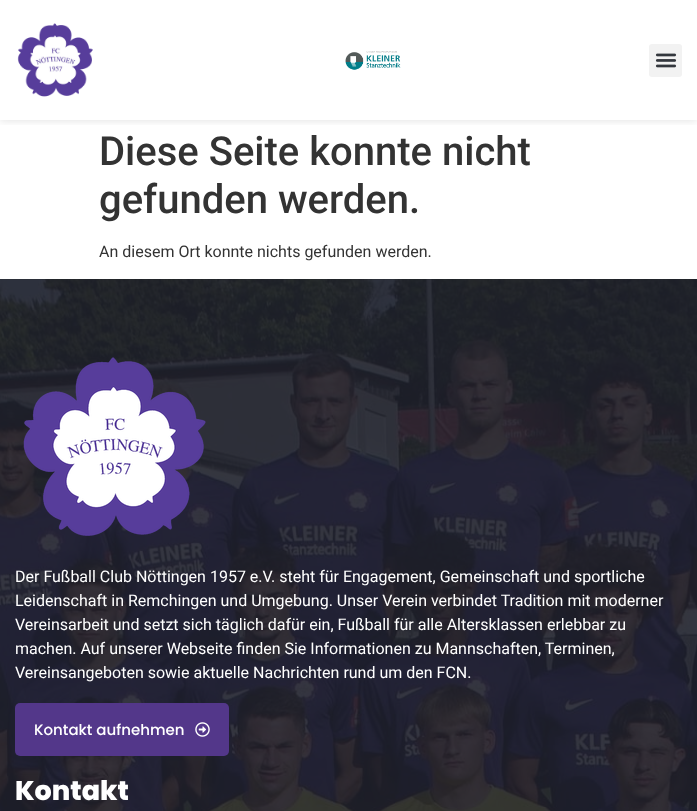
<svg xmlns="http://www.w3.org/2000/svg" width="697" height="811">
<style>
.a{font:500 40px Roboto;fill:#333}
.b{font:16px Roboto;fill:#333}
.c{font:16px Roboto;fill:#fff}
.d{font:500 15px Poppins;fill:#fff}
.e{font:800 27px Poppins;fill:#fff}
</style>
<defs>
<clipPath id="clip1"><path d="M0 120h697v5H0z"/></clipPath>
</defs>
<rect width="100%" height="100%" fill="#fff"/>
<g clip-path="url(#clip1)">
<path fill="#00000021" filter="blur(5px)" d="M0 0h697v120H0z"/>
</g>
<image href="1.png" x="17" y="23" width="76" height="74"/>
<image href="2.png" x="345" y="51" width="56" height="19"/>
<rect fill="#f2f2f2" x="649" y="44" width="33" height="33" rx="3"/>
<image href="3.png" x="655" y="53" width="22" height="15"/>
<image href="4.png" x="0" y="279" width="697" height="532"/>
<image href="5.png" x="23" y="357" width="183" height="179"/>
<rect fill="#53378a" x="15" y="703" width="214" height="53" rx="5"/>
<image href="6.png" x="195" y="722" width="15" height="15"/>
<text class="a" x="99" y="165">Diese Seite konnte nicht</text>
<text class="a" x="99" y="213">gefunden werden.</text>
<text class="b" x="99" y="257">An diesem Ort konnte nichts gefunden werden.</text>
<text class="c" x="15" y="582">Der Fußball Club Nöttingen 1957 e.V. steht für Engagement, Gemeinschaft und sportliche</text>
<text class="c" x="15" y="606">Leidenschaft in Remchingen und Umgebung. Unser Verein verbindet Tradition mit moderner</text>
<text class="c" x="15" y="630">Vereinsarbeit und setzt sich täglich dafür ein, Fußball für alle Altersklassen erlebbar zu</text>
<text class="c" x="15" y="654">machen. Auf unserer Webseite finden Sie Informationen zu Mannschaften, Terminen,</text>
<text class="c" x="15" y="678">Vereinsangeboten sowie aktuelle Nachrichten rund um den FCN.</text>
<text class="d" x="34" y="735">Kontakt aufnehmen</text>
<text class="e" x="15" y="800">Kontakt</text>
</svg>
